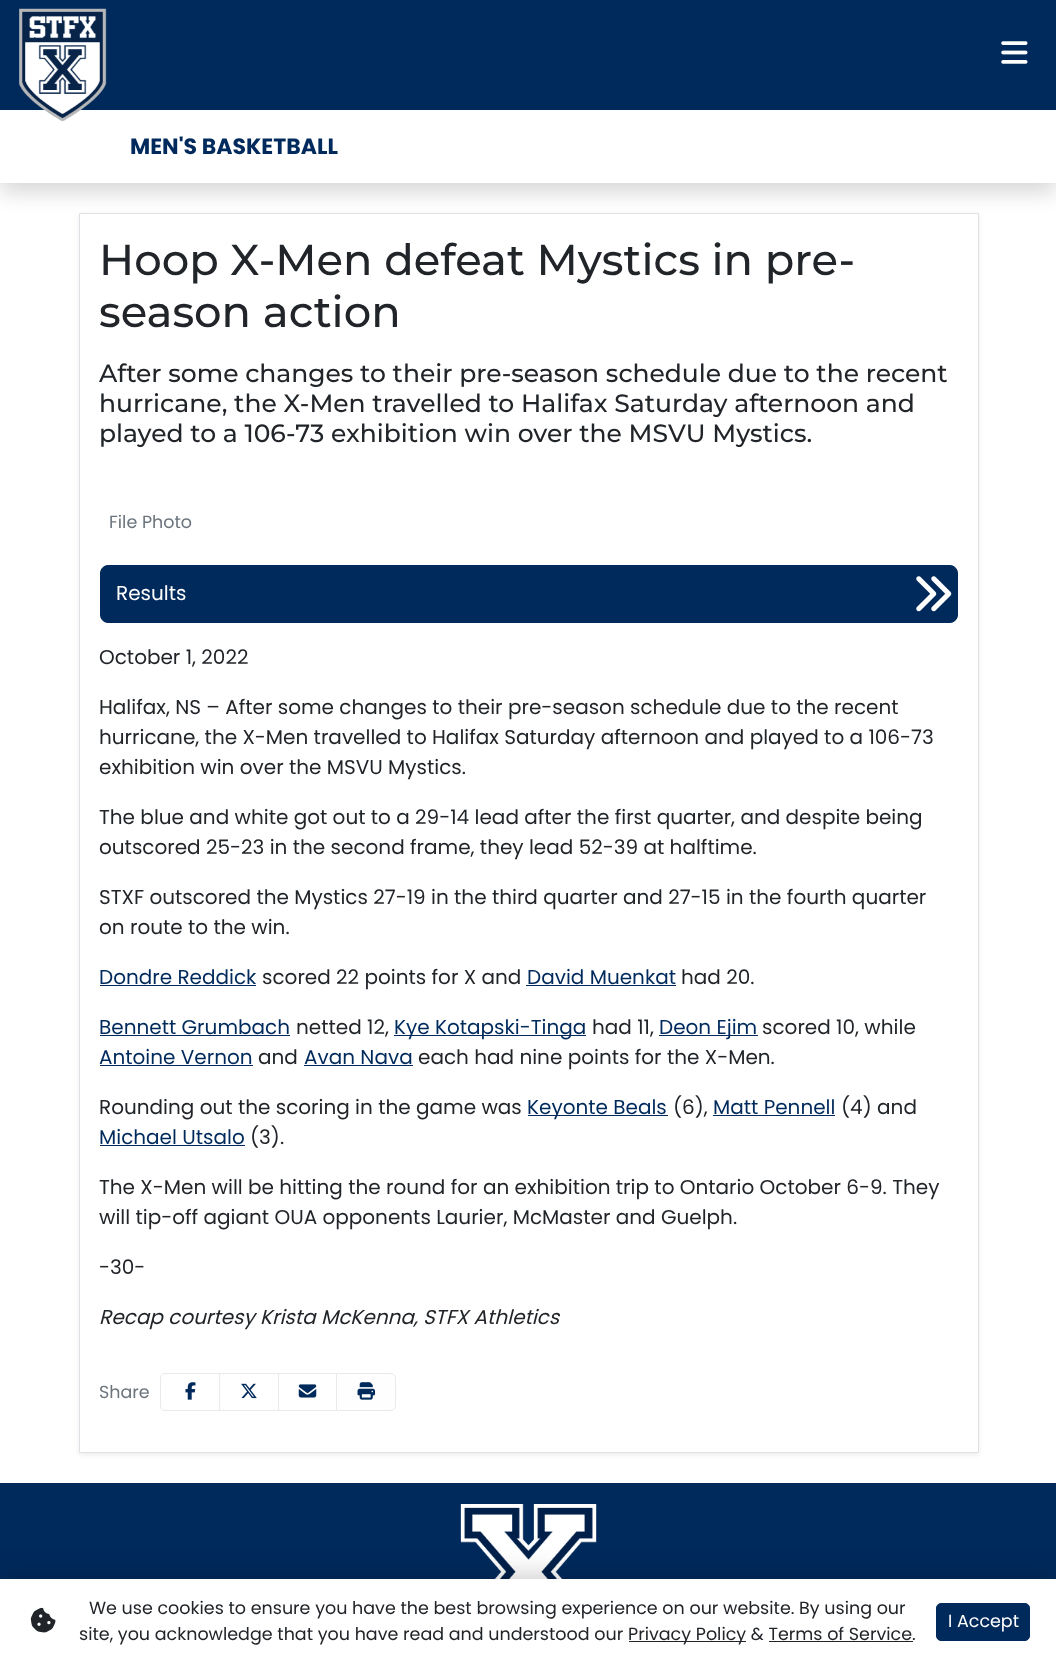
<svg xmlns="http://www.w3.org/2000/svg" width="1056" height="1663">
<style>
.a{font:bold 22px Poppins;fill:#002a5c}
.b{font:500 43.3px Montserrat;fill:#212529}
.c{font:500 25px Montserrat;fill:#212529}
.d{font:17.5px Poppins;fill:#6c757d}
.e{font:20px Poppins;fill:#fff}
.f{font:20px Poppins;fill:#212529}
.g{font:20px Poppins;fill:#002a5c}
.h{font:italic 20px Poppins;fill:#212529}
.i{font:17.5px Poppins;fill:#212529}
.j{font:17.5px Poppins;fill:#fff}
</style>
<defs>
<clipPath id="clip1"><path d="M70 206h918v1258h-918zm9 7h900v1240h-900z" clip-rule="evenodd"/></clipPath>
</defs>
<rect width="100%" height="100%" fill="#fff"/>
<path fill="#002a5c" d="M0 0h1056v110H0z"/>
<g clip-path="url(#clip1)">
<path fill="#00000012" filter="blur(2.5px)" d="M79 215h900v1240H79z"/>
</g>
<path fill="none" stroke="#dee2e6" d="M79.5 213.5h899v1239H79.5z"/>
<path fill="#00000026" filter="blur(10px)" d="M0 120h1056v73H0z"/>
<path fill="#fff" d="M0 110h1056v73H0z"/>
<image href="1.png" x="19" y="8" width="88" height="114"/>
<image href="2.png" x="1001" y="41" width="27" height="23"/>
<rect fill="#002a5c" stroke="#002a5c" x="100.5" y="565.5" width="857" height="57" rx="7.5"/>
<image href="3.png" x="916" y="576" width="36" height="36"/>
<path fill="#002a5c" d="M100 985h156v1H100z"/>
<path fill="#002a5c" d="M526 985h150v1H526z"/>
<path fill="#002a5c" d="M100 1035h190v1H100z"/>
<path fill="#002a5c" d="M394 1035h192v1H394z"/>
<path fill="#002a5c" d="M659 1035h99v1H659z"/>
<path fill="#002a5c" d="M100 1065h153v1H100z"/>
<path fill="#002a5c" d="M304 1065h109v1H304z"/>
<path fill="#002a5c" d="M528 1115h140v1H528z"/>
<path fill="#002a5c" d="M713 1115h122v1H713z"/>
<path fill="#002a5c" d="M100 1145h145v1H100z"/>
<path fill="none" stroke="#eaeaea" d="M165 1373.5h54.5v37h-54.5c-2.5 0-4.5-2-4.5-4.5v-28c0-2.5 2-4.5 4.5-4.5z"/>
<image href="4.png" x="185" y="1382" width="11" height="18"/>
<path fill="none" stroke="#eaeaea" d="M219.5 1373.5h59v37H219.5z"/>
<image href="5.png" x="241" y="1383" width="16" height="16"/>
<path fill="none" stroke="#eaeaea" d="M278.5 1373.5h59v37H278.5z"/>
<image href="6.png" x="298" y="1384" width="19" height="14"/>
<path fill="#fefefe" stroke="#eaeaea" d="M336.5 1373.5h54.5c2.5 0 4.5 2 4.5 4.5v28c0 2.5-2 4.5-4.5 4.5h-54.5z"/>
<image href="7.png" x="357" y="1382" width="18" height="18"/>
<path fill="#002a5c" d="M0 1483h1056v96H0z"/>
<image href="8.png" x="460" y="1504" width="137" height="75"/>
<path fill="#00000040" filter="blur(15px)" d="M0 1579h1056v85H0z"/>
<path fill="#fff" d="M0 1579h1056v84H0z"/>
<image href="9.png" x="30" y="1607" width="26" height="26"/>
<path fill="#212529" d="M629 1641h117v1H629z"/>
<path fill="#212529" d="M769 1641h144v1H769z"/>
<rect fill="#002a5c" stroke="#002a5c" x="936.5" y="1603.5" width="93" height="37" rx="4.5"/>
<text class="a" x="130" y="154">MEN'S BASKETBALL</text>
<text class="b" x="99" y="275">Hoop X-Men defeat Mystics in pre-</text>
<text class="b" x="99" y="327">season action</text>
<text class="c" x="99" y="382">After some changes to their pre-season schedule due to the recent</text>
<text class="c" x="99" y="412">hurricane, the X-Men travelled to Halifax Saturday afternoon and</text>
<text class="c" x="99" y="442">played to a 106-73 exhibition win over the MSVU Mystics.</text>
<text class="d" x="109" y="528">File Photo</text>
<text class="e" x="116" y="600">Results</text>
<text class="f" x="99" y="664">October 1, 2022</text>
<text class="f" x="99" y="714">Halifax, NS – After some changes to their pre-season schedule due to the recent</text>
<text class="f" x="99" y="744">hurricane, the X-Men travelled to Halifax Saturday afternoon and played to a 106-73</text>
<text class="f" x="99" y="774">exhibition win over the MSVU Mystics.</text>
<text class="f" x="99" y="824">The blue and white got out to a 29-14 lead after the first quarter, and despite being</text>
<text class="f" x="99" y="854">outscored 25-23 in the second frame, they lead 52-39 at halftime.</text>
<text class="f" x="99" y="904">STXF outscored the Mystics 27-19 in the third quarter and 27-15 in the fourth quarter</text>
<text class="f" x="99" y="934">on route to the win.</text>
<text class="g" x="99" y="984">Dondre Reddick</text>
<text class="f" x="262" y="984">scored 22 points for X and</text>
<text class="g" x="527" y="984">David Muenkat</text>
<text class="f" x="681" y="984">had 20.</text>
<text class="g" x="99" y="1034">Bennett Grumbach</text>
<text class="f" x="296" y="1034">netted 12,</text>
<text class="g" x="394" y="1034">Kye Kotapski-Tinga</text>
<text class="f" x="592" y="1034">had 11,</text>
<text class="g" x="659" y="1034">Deon Ejim</text>
<text class="f" x="762" y="1034">scored 10, while</text>
<text class="g" x="99" y="1064">Antoine Vernon</text>
<text class="f" x="258" y="1064">and</text>
<text class="g" x="304" y="1064">Avan Nava</text>
<text class="f" x="418" y="1064">each had nine points for the X-Men.</text>
<text class="f" x="99" y="1114">Rounding out the scoring in the game was</text>
<text class="g" x="527" y="1114">Keyonte Beals</text>
<text class="f" x="673" y="1114">(6),</text>
<text class="g" x="713" y="1114">Matt Pennell</text>
<text class="f" x="841" y="1114">(4) and</text>
<text class="g" x="99" y="1144">Michael Utsalo</text>
<text class="f" x="250" y="1144">(3).</text>
<text class="f" x="99" y="1194">The X-Men will be hitting the round for an exhibition trip to Ontario October 6-9. They</text>
<text class="f" x="99" y="1224">will tip-off agiant OUA opponents Laurier, McMaster and Guelph.</text>
<text class="f" x="99" y="1274">-30-</text>
<text class="h" x="99" y="1324">Recap courtesy Krista McKenna, STFX Athletics</text>
<text class="d" x="99" y="1398">Share</text>
<text class="i" x="89" y="1614">We use cookies to ensure you have the best browsing experience on our website. By using our</text>
<text class="i" x="79" y="1640">site, you acknowledge that you have read and understood our</text>
<text class="i" x="628" y="1640">Privacy Policy &amp; Terms of Service.</text>
<text class="j" x="948" y="1627">I Accept</text>
</svg>
